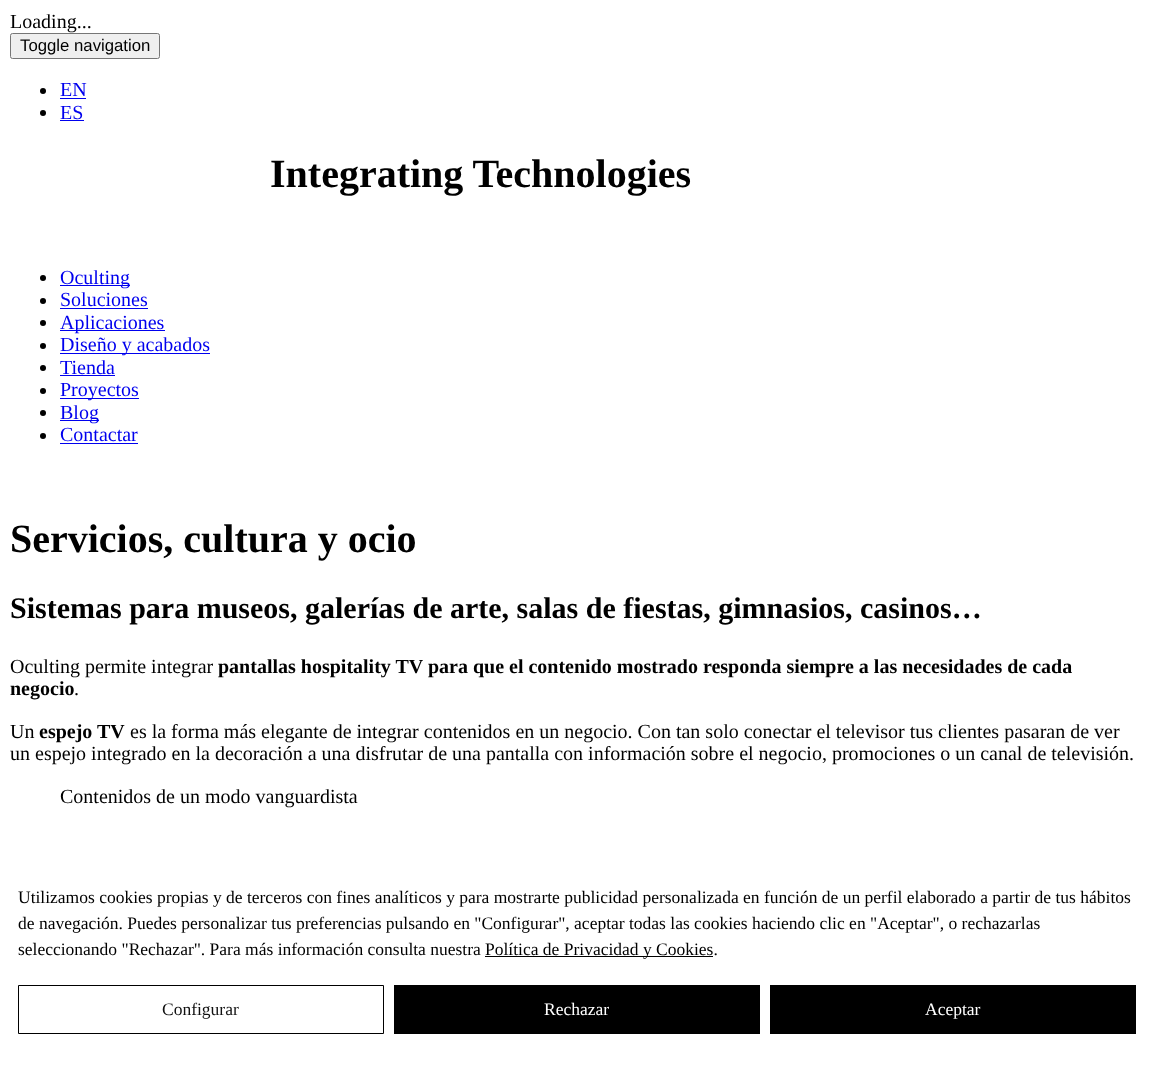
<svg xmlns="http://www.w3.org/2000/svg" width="1153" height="1068">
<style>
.a{font:20px Liberation Serif;fill:#000}
.b{font:16.75px Liberation Sans;fill:#000}
.c{font:20px Liberation Serif;fill:#00e}
.d{font:bold 40px Liberation Serif;fill:#000}
.e{font:bold 30px Liberation Serif;fill:#000}
.f{font:bold 20px Liberation Serif;fill:#000}
.g{font:17.5px Liberation Serif;fill:#000}
.h{font:17.5px Liberation Serif;fill:#111}
.i{font:17.5px Liberation Serif;fill:#fff}
</style>
<rect width="100%" height="100%" fill="#fff"/>
<rect fill="#efefef" stroke="#767676" x="10.5" y="33.5" width="149" height="25" rx="2"/>
<circle fill="#000" cx="43" cy="91" r="3"/>
<path fill="#00e" d="M60 98h26v1H60z"/>
<circle fill="#000" cx="43" cy="113" r="3"/>
<path fill="#00e" d="M60 120h24v1H60z"/>
<circle fill="#000" cx="43" cy="278" r="3"/>
<path fill="#00e" d="M60 285h70v1H60z"/>
<circle fill="#000" cx="43" cy="301" r="3"/>
<path fill="#00e" d="M60 308h88v1H60z"/>
<circle fill="#000" cx="43" cy="323" r="3"/>
<path fill="#00e" d="M60 330h105v1H60z"/>
<circle fill="#000" cx="43" cy="346" r="3"/>
<path fill="#00e" d="M60 353h150v1H60z"/>
<circle fill="#000" cx="43" cy="368" r="3"/>
<path fill="#00e" d="M60 375h55v1H60z"/>
<circle fill="#000" cx="43" cy="391" r="3"/>
<path fill="#00e" d="M60 398h79v1H60z"/>
<circle fill="#000" cx="43" cy="413" r="3"/>
<path fill="#00e" d="M60 420h39v1H60z"/>
<circle fill="#000" cx="43" cy="436" r="3"/>
<path fill="#00e" d="M60 443h78v1H60z"/>
<path fill="#000" d="M485 956h228v1H485z"/>
<path fill="none" stroke="#000" d="M18.5 985.5h365v48H18.5z"/>
<path fill="#000" d="M394 985h366v49H394z"/>
<path fill="#000" d="M770 985h366v49H770z"/>
<text class="a" x="10" y="28">Loading...</text>
<text class="b" x="20" y="51">Toggle navigation</text>
<text class="c" x="60" y="96">EN</text>
<text class="c" x="60" y="119">ES</text>
<text class="d" x="270" y="187">Integrating Technologies</text>
<text class="c" x="60" y="284">Oculting</text>
<text class="c" x="60" y="306">Soluciones</text>
<text class="c" x="60" y="329">Aplicaciones</text>
<text class="c" x="60" y="351">Diseño y acabados</text>
<text class="c" x="60" y="374">Tienda</text>
<text class="c" x="60" y="396">Proyectos</text>
<text class="c" x="60" y="419">Blog</text>
<text class="c" x="60" y="441">Contactar</text>
<text class="d" x="10" y="552">Servicios, cultura y ocio</text>
<text class="e" x="10" y="618">Sistemas para museos, galerías de arte, salas de fiestas, gimnasios, casinos…</text>
<text class="a" x="10" y="673">Oculting permite integrar</text>
<text class="f" x="218" y="673">pantallas hospitality TV para que el contenido mostrado responda siempre a las necesidades de cada</text>
<text class="f" x="10" y="695">negocio</text>
<text class="a" x="74" y="695">.</text>
<text class="a" x="10" y="738">Un</text>
<text class="f" x="39" y="738">espejo TV</text>
<text class="a" x="130" y="738">es la forma más elegante de integrar contenidos en un negocio. Con tan solo conectar el televisor tus clientes pasaran de ver</text>
<text class="a" x="10" y="760">un espejo integrado en la decoración a una disfrutar de una pantalla con información sobre el negocio, promociones o un canal de televisión.</text>
<text class="a" x="60" y="803">Contenidos de un modo vanguardista</text>
<text class="g" x="18" y="903">Utilizamos cookies propias y de terceros con fines analíticos y para mostrarte publicidad personalizada en función de un perfil elaborado a partir de tus hábitos</text>
<text class="g" x="18" y="929">de navegación. Puedes personalizar tus preferencias pulsando en "Configurar", aceptar todas las cookies haciendo clic en "Aceptar", o rechazarlas</text>
<text class="g" x="18" y="955">seleccionando "Rechazar". Para más información consulta nuestra</text>
<text class="g" x="485" y="955">Política de Privacidad y Cookies.</text>
<text class="h" x="162" y="1015">Configurar</text>
<text class="i" x="544" y="1015">Rechazar</text>
<text class="i" x="925" y="1015">Aceptar</text>
</svg>
